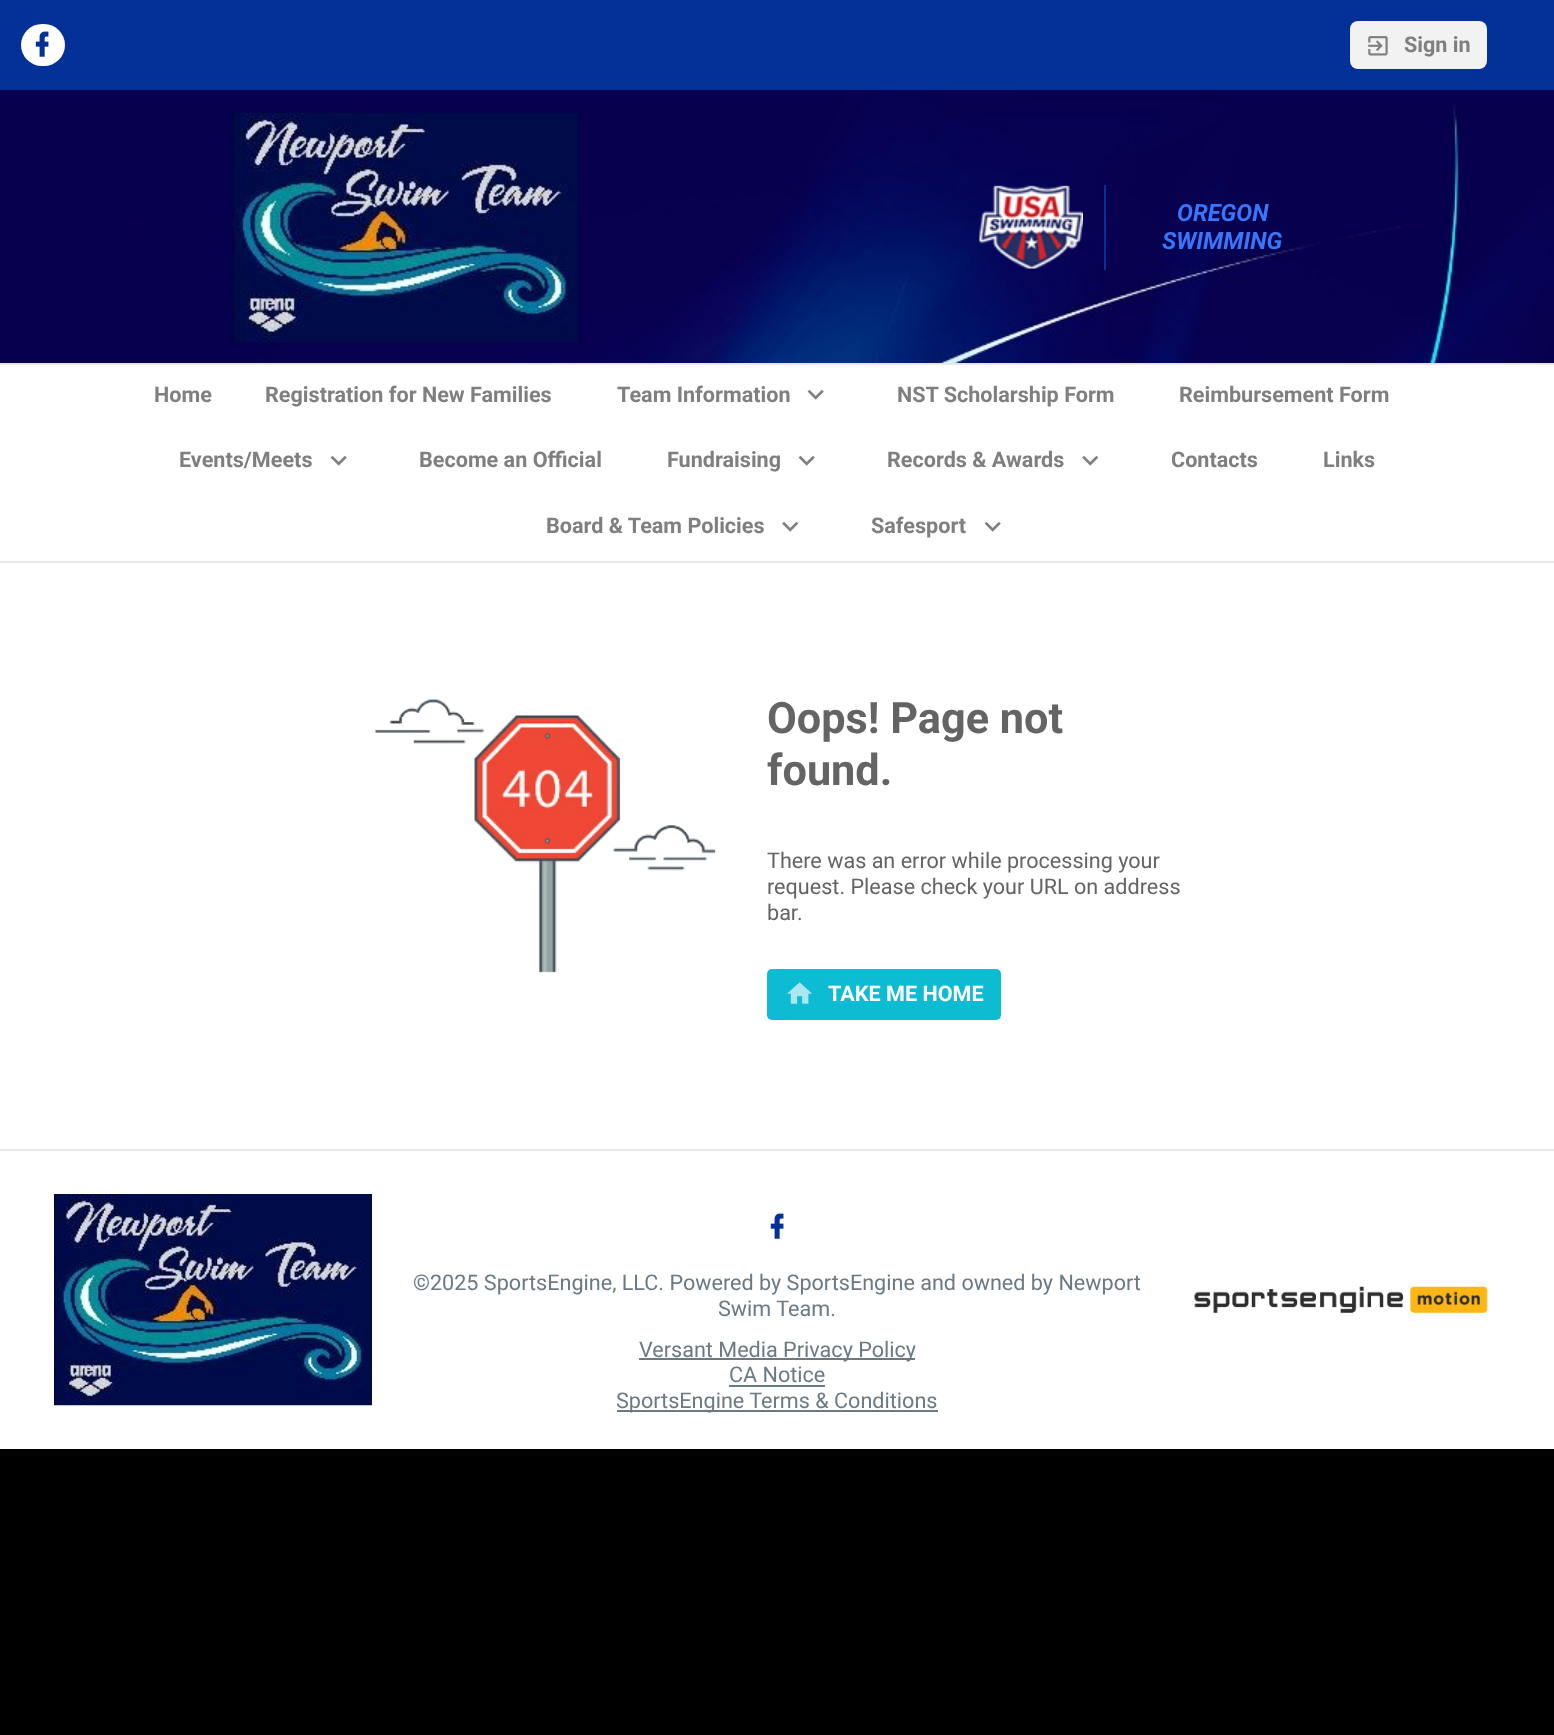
<svg xmlns="http://www.w3.org/2000/svg" width="1554" height="1735">
<style>
.a{font:bold 21.6px Roboto;fill:#7f7f7f}
.b{font:italic bold 23.75px Roboto;fill:#3a75fa}
.c{font:bold 43.25px Roboto;fill:#646464}
.d{font:21.6px Roboto;fill:#646464}
.e{font:bold 21.6px Roboto;fill:#fff}
.f{font:21.6px Roboto;fill:#6b7982}
</style>
<rect width="100%" height="100%" fill="#000"/>
<image href="1.png" x="0" y="90" width="1554" height="273"/>
<path fill="#043197" d="M0 0h1554v90H0z"/>
<rect fill="#fff" x="21" y="24" width="44" height="42" rx="21"/>
<image href="2.png" x="35" y="31" width="14" height="26"/>
<rect fill="#f2f2f2" x="1350" y="21" width="137" height="48" rx="8"/>
<image href="3.png" x="1368" y="36" width="20" height="20"/>
<image href="4.png" x="232" y="112" width="346" height="230"/>
<image href="5.png" x="979" y="185" width="104" height="84"/>
<path fill="#043197" d="M1104 185h2v85H1104z"/>
<path fill="#fff" d="M0 365h1554v196H0z"/>
<path fill="#e7e7e7" d="M0 363h1554v2H0z"/>
<path fill="#e7e7e7" d="M0 561h1554v2H0z"/>
<image href="6.png" x="807" y="389" width="17" height="11"/>
<image href="6.png" x="330" y="455" width="17" height="11"/>
<image href="6.png" x="798" y="455" width="17" height="11"/>
<image href="7.png" x="1082" y="455" width="17" height="11"/>
<image href="7.png" x="782" y="521" width="17" height="11"/>
<image href="6.png" x="984" y="521" width="17" height="11"/>
<path fill="#fff" d="M0 563h1554v586H0z"/>
<image href="8.png" x="375" y="699" width="341" height="274"/>
<rect fill="#0dbbd3" x="767" y="969" width="234" height="51" rx="5"/>
<image href="9.png" x="787" y="982" width="25" height="22"/>
<path fill="#fff" d="M0 1151h1554v298H0z"/>
<path fill="#e7e7e7" d="M0 1149h1554v2H0z"/>
<image href="10.png" x="54" y="1194" width="318" height="212"/>
<image href="2.png" x="770" y="1213" width="14" height="26"/>
<path fill="#6b7982" d="M639 1358h276v2H639z"/>
<path fill="#6b7982" d="M729 1385h96v2H729z"/>
<path fill="#6b7982" d="M617 1410h321v2H617z"/>
<image href="11.png" x="1194" y="1286" width="294" height="27"/>
<text class="a" x="1404" y="52">Sign in</text>
<text class="b" x="1177" y="221">OREGON</text>
<text class="b" x="1162" y="249">SWIMMING</text>
<text class="a" x="154" y="402">Home</text>
<text class="a" x="265" y="402">Registration for New Families</text>
<text class="a" x="617" y="402">Team Information</text>
<text class="a" x="897" y="402">NST Scholarship Form</text>
<text class="a" x="1179" y="402">Reimbursement Form</text>
<text class="a" x="179" y="467">Events/Meets</text>
<text class="a" x="419" y="467">Become an Official</text>
<text class="a" x="667" y="467">Fundraising</text>
<text class="a" x="887" y="467">Records &amp; Awards</text>
<text class="a" x="1171" y="467">Contacts</text>
<text class="a" x="1323" y="467">Links</text>
<text class="a" x="546" y="533">Board &amp; Team Policies</text>
<text class="a" x="871" y="533">Safesport</text>
<text class="c" x="767" y="733">Oops! Page not</text>
<text class="c" x="767" y="785">found.</text>
<text class="d" x="767" y="868">There was an error while processing your</text>
<text class="d" x="767" y="894">request. Please check your URL on address</text>
<text class="d" x="767" y="920">bar.</text>
<text class="e" x="828" y="1001">TAKE ME HOME</text>
<text class="f" x="413" y="1290">©2025 SportsEngine, LLC. Powered by SportsEngine and owned by Newport</text>
<text class="f" x="718" y="1316">Swim Team.</text>
<text class="f" x="639" y="1357">Versant Media Privacy Policy</text>
<text class="f" x="729" y="1382">CA Notice</text>
<text class="f" x="616" y="1408">SportsEngine Terms &amp; Conditions</text>
</svg>
